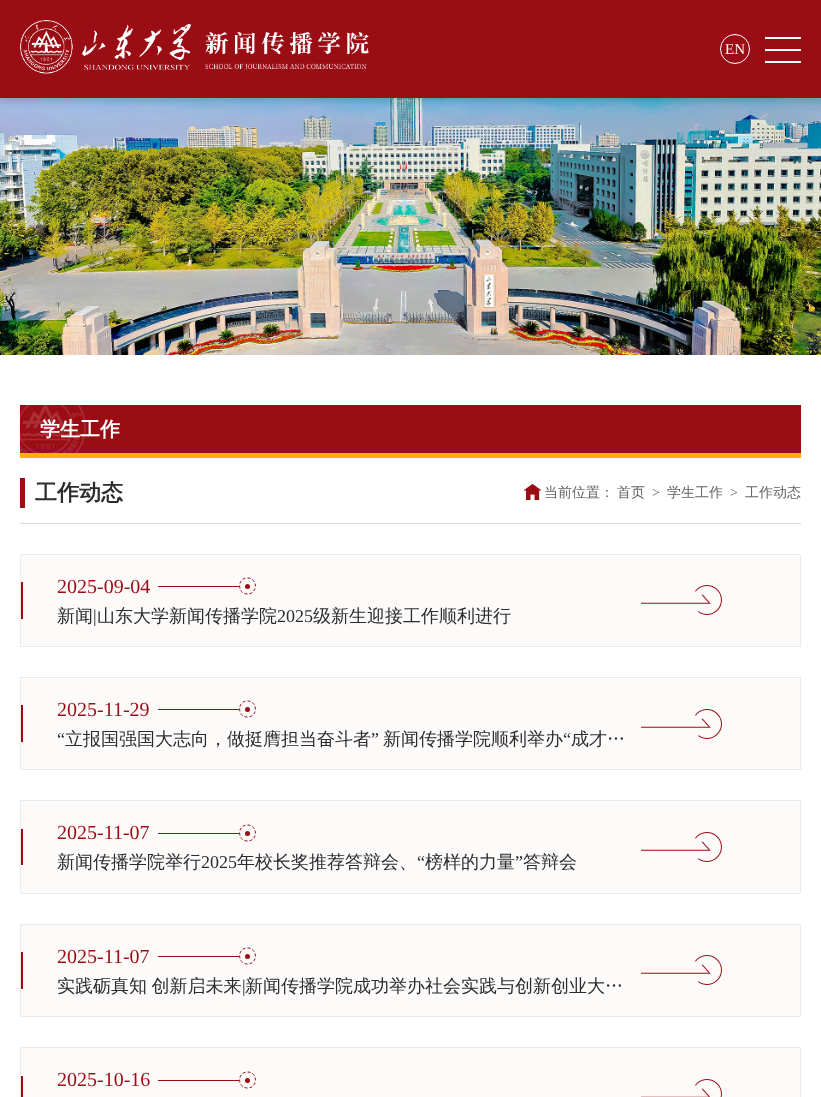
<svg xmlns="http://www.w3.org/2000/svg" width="821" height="1097">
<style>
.a{font:15px Liberation Serif;fill:#fff}
.b{font:bold 20px WenQuanYi Zen Hei;fill:#fff}
.c{font:bold 22px WenQuanYi Zen Hei;fill:#2c2c2c}
.d{font:500 14px WenQuanYi Zen Hei;fill:#626262}
.e{font:14px Liberation Serif;fill:#626262}
.f{font:20px Liberation Serif;fill:#9b0d14}
.g{font:500 18px WenQuanYi Zen Hei;fill:#2c2c2c}
.h{font:18px Liberation Serif;fill:#2c2c2c}
</style>
<rect width="100%" height="100%" fill="#fff"/>
<image href="2.png" x="0" y="98" width="821" height="257"/>
<path fill="#00000033" filter="blur(5px)" d="M-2 -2h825v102H-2z"/>
<path fill="#9b0d14" d="M0 0h821v98H0z"/>
<image href="1.png" x="20" y="20" width="349" height="54"/>
<circle fill="none" stroke="#fff" cx="735" cy="49" r="14.5"/>
<path fill="#fff" d="M765 37h36v2H765z"/>
<path fill="#fff" d="M765 49h36v2H765z"/>
<path fill="#fff" d="M765 61h36v2H765z"/>
<path fill="#9b0d14" d="M20 405h781v48H20z"/>
<image href="3.png" x="20" y="405" width="66" height="48"/>
<path fill="#ffae01" d="M20 453h781v5H20z"/>
<path fill="#d8d8d8" d="M20 523h781v1H20z"/>
<path fill="#9b0d14" d="M20 478h5v30H20z"/>
<image href="4.png" x="524" y="484" width="17" height="16"/>
<path fill="#fdfafa" d="M21 555h779v91H21z"/>
<image href="5.png" x="641" y="585" width="81" height="30"/>
<path fill="none" stroke="#eaeaea" d="M20.5 554.5h780v92H20.5z"/>
<path fill="#9b0d14" d="M21 582h2v37H21z"/>
<path fill="#9b0d14" d="M158 586h81v1H158z"/>
<path fill="none" stroke="#9b0d14" stroke-dasharray="3 2" d="M247.5 578c10.5 0 10.5 16 0 16c-10.5 0-10.5-16 0-16z"/>
<circle fill="#9b0d14" cx="247.5" cy="586.5" r="2.5"/>
<path fill="#fdfafa" d="M21 678h779v91H21z"/>
<image href="5.png" x="641" y="709" width="81" height="30"/>
<path fill="none" stroke="#eaeaea" d="M20.5 677.5h780v92H20.5z"/>
<path fill="#9b0d14" d="M21 705h2v37H21z"/>
<path fill="#9b0d14" d="M158 709h81v1H158z"/>
<path fill="none" stroke="#9b0d14" stroke-dasharray="3 2" d="M247.5 701c10.5 0 10.5 16 0 16c-10.5 0-10.5-16 0-16z"/>
<circle fill="#9b0d14" cx="247.5" cy="709.5" r="2.5"/>
<path fill="#fdfafa" d="M21 801h779v92H21z"/>
<image href="5.png" x="641" y="832" width="81" height="30"/>
<path fill="none" stroke="#eaeaea" d="M20.5 800.5h780v93H20.5z"/>
<path fill="#9b0d14" d="M21 829h2v36H21z"/>
<path fill="#9b0d14" d="M158 833h81v1H158z"/>
<path fill="none" stroke="#9b0d14" stroke-dasharray="3 2" d="M247.5 825c10.5 0 10.5 16 0 16c-10.5 0-10.5-16 0-16z"/>
<circle fill="#9b0d14" cx="247.5" cy="833.5" r="2.5"/>
<path fill="#fdfafa" d="M21 925h779v91H21z"/>
<image href="5.png" x="641" y="955" width="81" height="30"/>
<path fill="none" stroke="#eaeaea" d="M20.5 924.5h780v92H20.5z"/>
<path fill="#9b0d14" d="M21 952h2v37H21z"/>
<path fill="#9b0d14" d="M158 956h81v1H158z"/>
<path fill="none" stroke="#9b0d14" stroke-dasharray="3 2" d="M247.5 948c10.5 0 10.5 16 0 16c-10.5 0-10.5-16 0-16z"/>
<circle fill="#9b0d14" cx="247.5" cy="956.5" r="2.5"/>
<path fill="#fdfafa" d="M21 1048h779v49H21z"/>
<image href="6.png" x="641" y="1079" width="81" height="18"/>
<path fill="none" stroke="#eaeaea" d="M20.5 1047.5h780v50H20.5z"/>
<path fill="#9b0d14" d="M21 1076h2v21H21z"/>
<path fill="#9b0d14" d="M158 1080h81v1H158z"/>
<path fill="none" stroke="#9b0d14" stroke-dasharray="3 2" d="M247.5 1072c10.5 0 10.5 16 0 16c-10.5 0-10.5-16 0-16z"/>
<circle fill="#9b0d14" cx="247.5" cy="1080.5" r="2.5"/>
<text class="a" x="725" y="54">EN</text>
<text class="b" x="40" y="436">学生工作</text>
<text class="c" x="35" y="500">工作动态</text>
<text class="d" x="544" y="497">当前位置：</text>
<text class="d" x="617" y="497">首页</text>
<text class="e" x="652" y="497">&gt;</text>
<text class="d" x="667" y="497">学生工作</text>
<text class="e" x="730" y="497">&gt;</text>
<text class="d" x="745" y="497">工作动态</text>
<text class="f" x="57" y="593">2025-09-04</text>
<text class="g" x="57" y="622">新闻</text>
<text class="h" x="93" y="622">|</text>
<text class="g" x="97" y="622">山东大学新闻传播学院</text>
<text class="h" x="277" y="622">2025</text>
<text class="g" x="313" y="622">级新生迎接工作顺利进行</text>
<text class="f" x="57" y="716">2025-11-29</text>
<text class="h" x="57" y="745">“</text>
<text class="g" x="65" y="745">立报国强国大志向，做挺膺担当奋斗者</text>
<text class="h" x="371" y="745">”</text>
<text class="g" x="383" y="745">新闻传播学院顺利举办</text>
<text class="h" x="563" y="745">“</text>
<text class="g" x="571" y="745">成才…</text>
<text class="f" x="57" y="839">2025-11-07</text>
<text class="g" x="57" y="868">新闻传播学院举行</text>
<text class="h" x="201" y="868">2025</text>
<text class="g" x="237" y="868">年校长奖推荐答辩会、</text>
<text class="h" x="417" y="868">“</text>
<text class="g" x="425" y="868">榜样的力量</text>
<text class="h" x="515" y="868">”</text>
<text class="g" x="523" y="868">答辩会</text>
<text class="f" x="57" y="963">2025-11-07</text>
<text class="g" x="57" y="992" word-spacing="-1">实践砺真知 创新启未来</text>
<text class="h" x="242" y="992">|</text>
<text class="g" x="245" y="992">新闻传播学院成功举办社会实践与创新创业大…</text>
<text class="f" x="57" y="1086">2025-10-16</text>
</svg>
